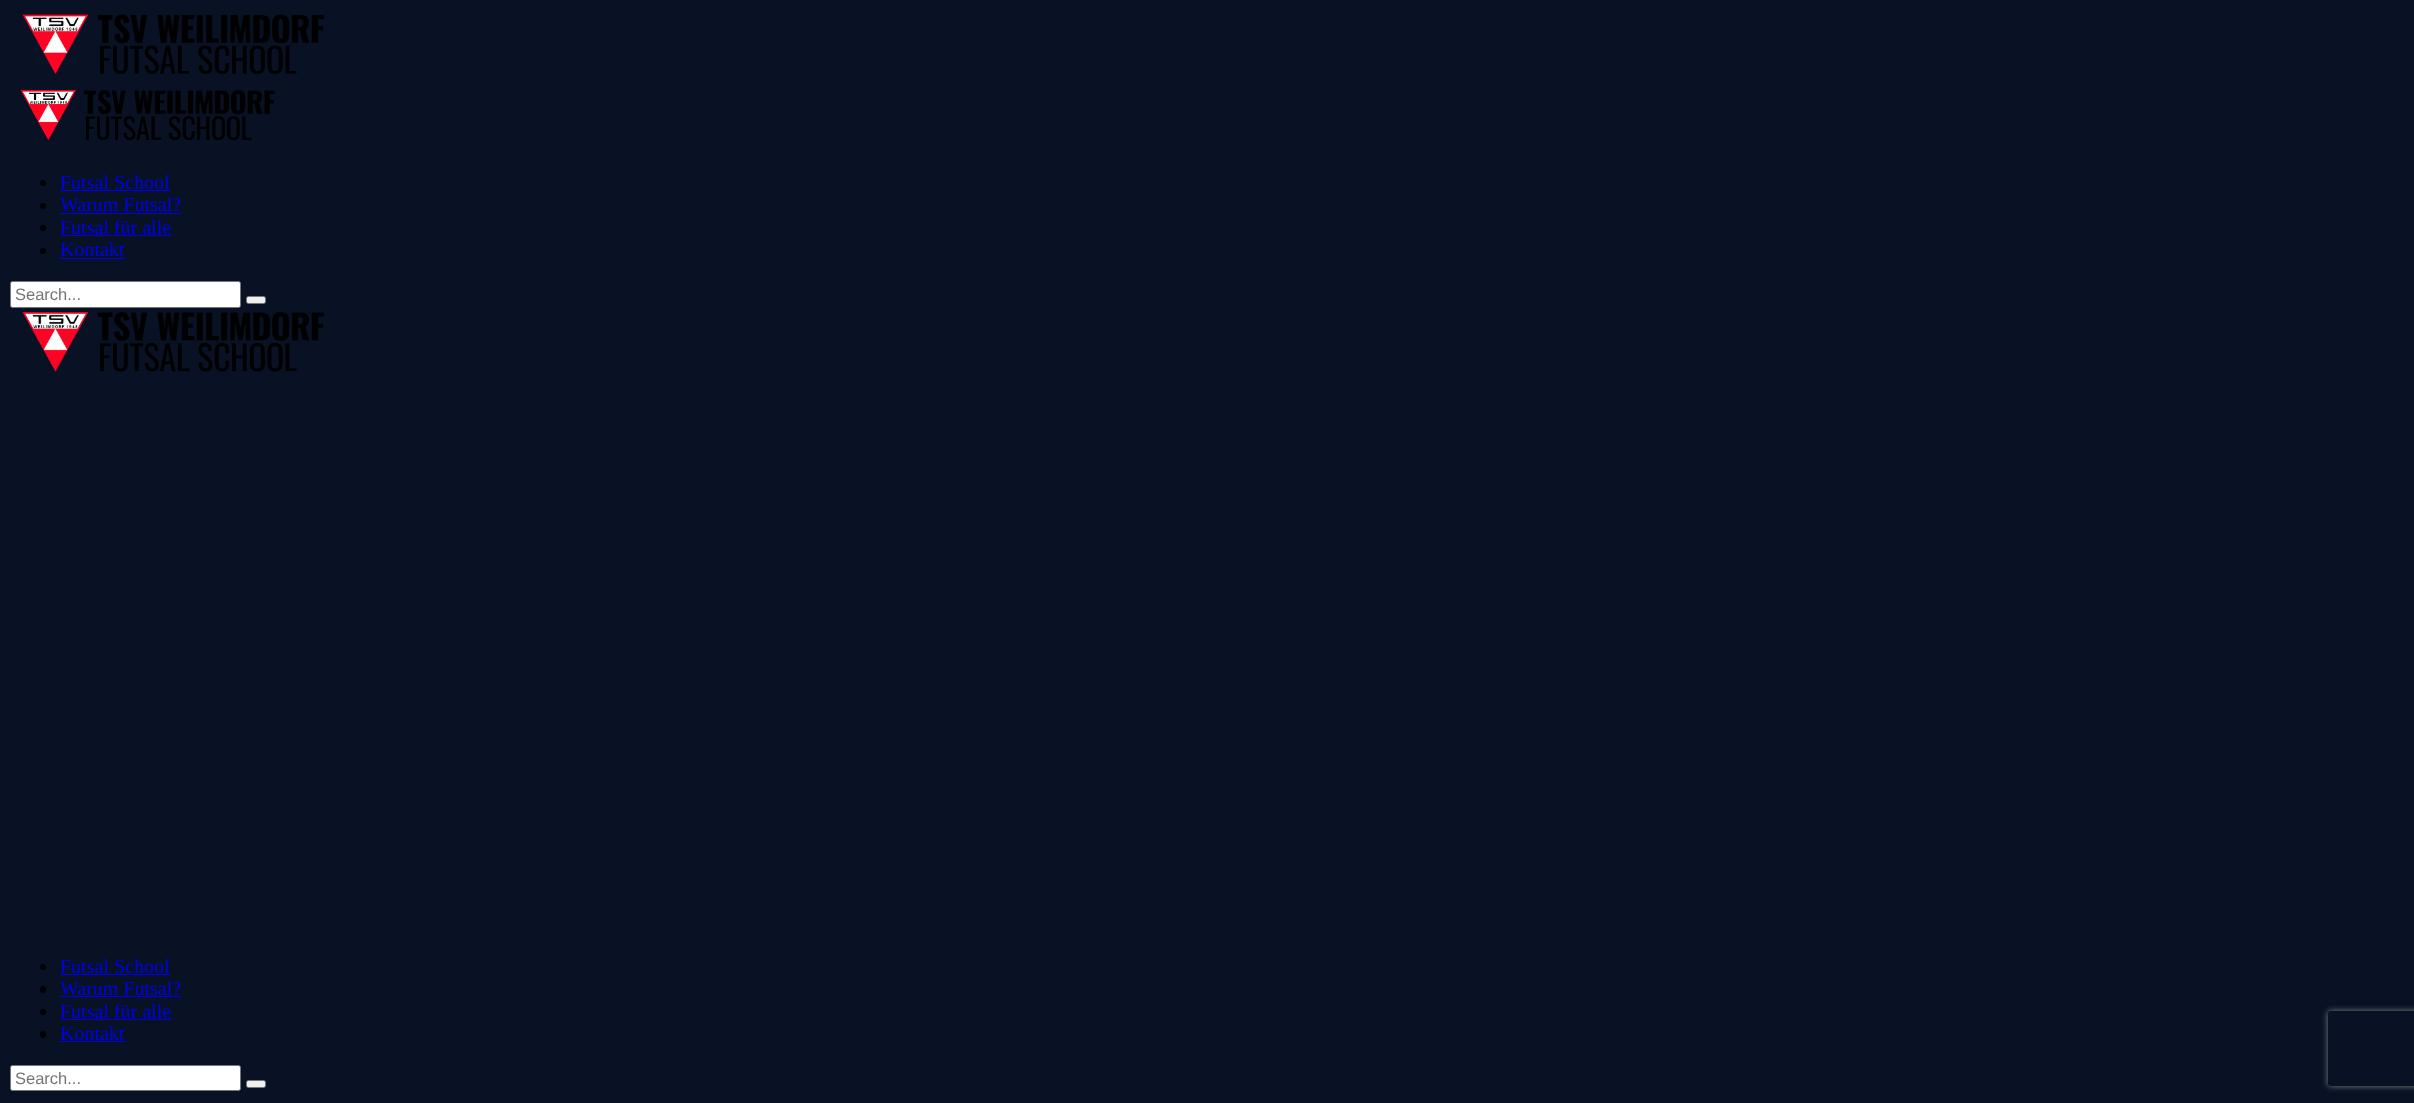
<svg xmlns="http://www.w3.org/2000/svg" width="2414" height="1103">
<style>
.a{font:20px Liberation Serif;fill:#00e}
.b{font:16.5px Liberation Sans;fill:#757575}
</style>
<defs>
<clipPath id="clip1"><path d="M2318 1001h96v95h-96zm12.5 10h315c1.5 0 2.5 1 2.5 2.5v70c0 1.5-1 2.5-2.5 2.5h-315c-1.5 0-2.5-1-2.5-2.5v-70c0-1.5 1-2.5 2.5-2.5z" clip-rule="evenodd"/></clipPath>
</defs>
<rect width="100%" height="100%" fill="#081224"/>
<image href="1.png" x="22" y="14" width="302" height="60"/>
<image href="2.png" x="20" y="90" width="255" height="50"/>
<circle fill="#000" cx="43" cy="183" r="3"/>
<path fill="#00e" d="M60 190h110v1H60z"/>
<circle fill="#000" cx="43" cy="206" r="3"/>
<path fill="#00e" d="M60 213h121v1H60z"/>
<circle fill="#000" cx="43" cy="228" r="3"/>
<path fill="#00e" d="M60 235h111v1H60z"/>
<circle fill="#000" cx="43" cy="251" r="3"/>
<path fill="#00e" d="M60 258h65v1H60z"/>
<rect fill="#fff" stroke="#767676" x="10.5" y="281.5" width="230" height="26" rx="2"/>
<rect fill="#efefef" stroke="#767676" x="246.5" y="296.5" width="19" height="7" rx="2"/>
<image href="3.png" x="22" y="312" width="302" height="60"/>
<circle fill="#000" cx="43" cy="967" r="3"/>
<path fill="#00e" d="M60 974h110v1H60z"/>
<rect fill="#000" x="40" y="986" width="6" height="7" rx="3"/>
<path fill="#00e" d="M60 996h121v1H60z"/>
<circle fill="#000" cx="43" cy="1012" r="3"/>
<path fill="#00e" d="M60 1019h111v1H60z"/>
<rect fill="#000" x="40" y="1031" width="6" height="7" rx="3"/>
<path fill="#00e" d="M60 1041h65v1H60z"/>
<rect fill="#fff" stroke="#767676" x="10.5" y="1065.5" width="230" height="25" rx="2"/>
<rect fill="#efefef" stroke="#767676" x="246.5" y="1080.5" width="19" height="7" rx="2"/>
<g clip-path="url(#clip1)">
<rect fill="#808080" filter="blur(3px)" x="2328" y="1011" width="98" height="75" rx="2.5"/>
</g>
<text class="a" x="60" y="189">Futsal School</text>
<text class="a" x="60" y="211">Warum Futsal?</text>
<text class="a" x="60" y="234">Futsal für alle</text>
<text class="a" x="60" y="256">Kontakt</text>
<text class="b" x="15" y="300">Search...</text>
<text class="a" x="60" y="973">Futsal School</text>
<text class="a" x="60" y="995">Warum Futsal?</text>
<text class="a" x="60" y="1018">Futsal für alle</text>
<text class="a" x="60" y="1040">Kontakt</text>
<text class="b" x="15" y="1084">Search...</text>
</svg>
